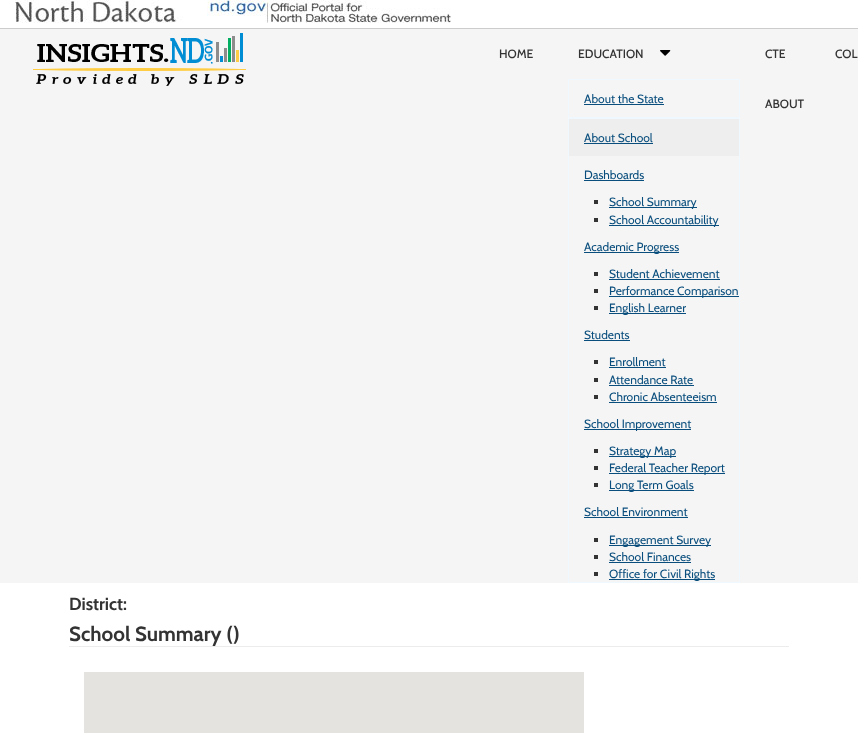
<svg xmlns="http://www.w3.org/2000/svg" width="858" height="733">
<style>
.a{font:500 12px Cabin;fill:#333}
.b{font:12px Cabin;fill:#0a4e7d}
.c{font:bold 17.5px Cabin;fill:#333}
.d{font:bold 20.5px Cabin;fill:#333}
</style>
<rect width="100%" height="100%" fill="#fff"/>
<path fill="#ccc" d="M0 28h858v1H0z"/>
<image href="1.png" x="15" y="0" width="436" height="23"/>
<path fill="#f5f5f5" d="M0 29h858v554H0z"/>
<image href="2.png" x="33" y="33" width="213" height="53"/>
<image href="3.png" x="660" y="50" width="11" height="6"/>
<path fill="none" stroke="#f0f8ff" d="M568.5 79.5h171v38H568.5z"/>
<path fill="#0a4e7d" d="M584 104h80v1H584z"/>
<path fill="none" stroke="#f0f8ff" d="M568.5 118.5h171v464H568.5z"/>
<path fill="#eee" d="M569 119h170v37H569z"/>
<path fill="#0a4e7d" d="M584 143h69v1H584z"/>
<path fill="#0a4e7d" d="M584 180h60v1H584z"/>
<path fill="#333" d="M594 200h4v4H594z"/>
<path fill="#0a4e7d" d="M609 207h88v1H609z"/>
<path fill="#333" d="M594 218h4v4H594z"/>
<path fill="#0a4e7d" d="M609 225h110v1H609z"/>
<path fill="#0a4e7d" d="M584 252h95v1H584z"/>
<path fill="#333" d="M594 272h4v4H594z"/>
<path fill="#0a4e7d" d="M609 279h111v1H609z"/>
<path fill="#333" d="M594 289h4v4H594z"/>
<path fill="#0a4e7d" d="M609 296h130v1H609z"/>
<path fill="#333" d="M594 306h4v4H594z"/>
<path fill="#0a4e7d" d="M609 313h77v1H609z"/>
<path fill="#0a4e7d" d="M584 340h46v1H584z"/>
<path fill="#333" d="M594 360h4v4H594z"/>
<path fill="#0a4e7d" d="M609 367h57v1H609z"/>
<path fill="#333" d="M594 378h4v4H594z"/>
<path fill="#0a4e7d" d="M609 385h85v1H609z"/>
<path fill="#333" d="M594 395h4v4H594z"/>
<path fill="#0a4e7d" d="M609 402h108v1H609z"/>
<path fill="#0a4e7d" d="M584 429h107v1H584z"/>
<path fill="#333" d="M594 449h4v4H594z"/>
<path fill="#0a4e7d" d="M609 456h67v1H609z"/>
<path fill="#333" d="M594 466h4v4H594z"/>
<path fill="#0a4e7d" d="M609 473h116v1H609z"/>
<path fill="#333" d="M594 483h4v4H594z"/>
<path fill="#0a4e7d" d="M609 490h85v1H609z"/>
<path fill="#0a4e7d" d="M584 517h104v1H584z"/>
<path fill="#333" d="M594 538h4v4H594z"/>
<path fill="#0a4e7d" d="M609 545h102v1H609z"/>
<path fill="#333" d="M594 555h4v4H594z"/>
<path fill="#0a4e7d" d="M609 562h82v1H609z"/>
<path fill="#333" d="M594 572h4v4H594z"/>
<path fill="#0a4e7d" d="M609 579h106v1H609z"/>
<path fill="#ececec" d="M69 646h720v1H69z"/>
<path fill="#e5e3df" d="M84 672h500v61H84z"/>
<text class="a" x="499" y="58">HOME</text>
<text class="a" x="578" y="58">EDUCATION</text>
<text class="b" x="584" y="103">About the State</text>
<text class="b" x="584" y="142">About School</text>
<text class="b" x="584" y="179">Dashboards</text>
<text class="b" x="609" y="206">School Summary</text>
<text class="b" x="609" y="224">School Accountability</text>
<text class="b" x="584" y="251">Academic Progress</text>
<text class="b" x="609" y="278">Student Achievement</text>
<text class="b" x="609" y="295">Performance Comparison</text>
<text class="b" x="609" y="312">English Learner</text>
<text class="b" x="584" y="339">Students</text>
<text class="b" x="609" y="366">Enrollment</text>
<text class="b" x="609" y="384">Attendance Rate</text>
<text class="b" x="609" y="401">Chronic Absenteeism</text>
<text class="b" x="584" y="428">School Improvement</text>
<text class="b" x="609" y="455">Strategy Map</text>
<text class="b" x="609" y="472">Federal Teacher Report</text>
<text class="b" x="609" y="489">Long Term Goals</text>
<text class="b" x="584" y="516">School Environment</text>
<text class="b" x="609" y="544">Engagement Survey</text>
<text class="b" x="609" y="561">School Finances</text>
<text class="b" x="609" y="578">Office for Civil Rights</text>
<text class="a" x="765" y="58">CTE</text>
<text class="a" x="835" y="58">COL</text>
<text class="a" x="765" y="108">ABOUT</text>
<text class="c" x="69" y="610">District:</text>
<text class="d" x="69" y="641">School Summary ()</text>
</svg>
